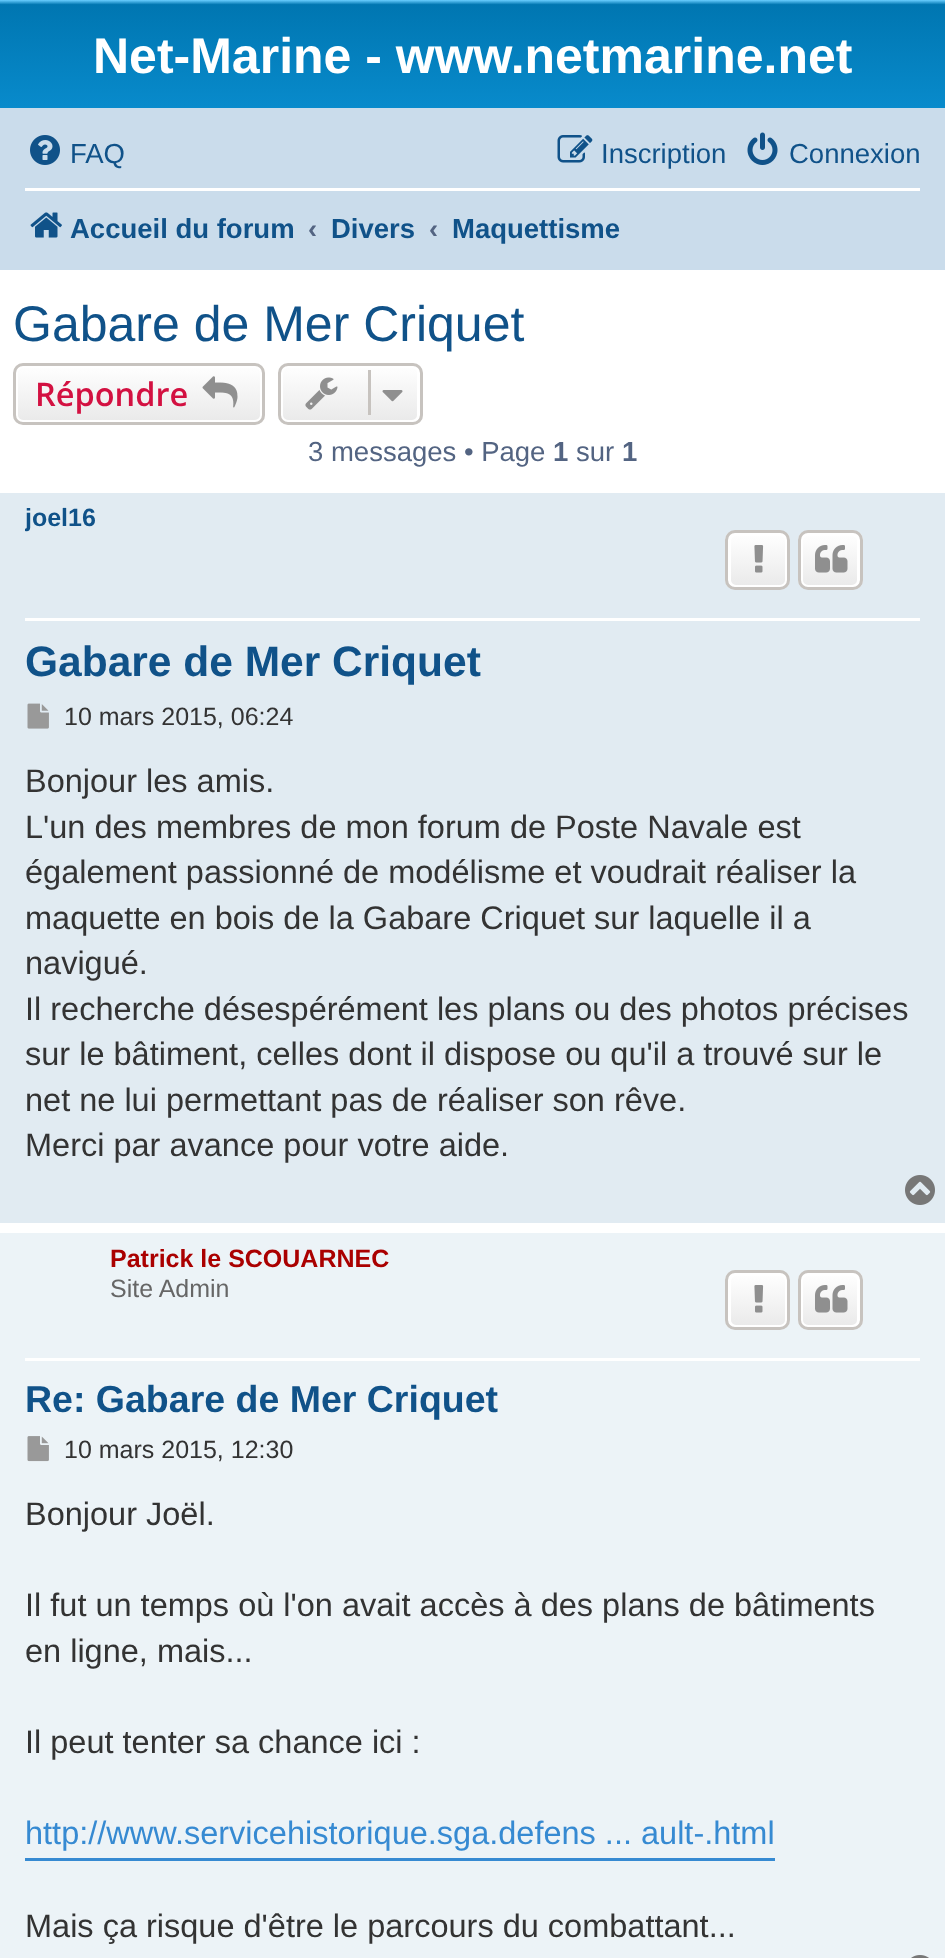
<svg xmlns="http://www.w3.org/2000/svg" width="945" height="1958">
<style>
.a{font:bold 50px Liberation Sans;fill:#fff}
.b{font:27.5px Liberation Sans;fill:#105289}
.c{font:bold 27.5px Liberation Sans;fill:#105289}
.d{font:bold 27.5px Liberation Sans;fill:#536482}
.e{font:50px Liberation Sans;fill:#105289}
.f{font:600 32.5px Open Sans;fill:#d31141}
.g{font:27.5px Liberation Sans;fill:#536482}
.h{font:bold 25px Liberation Sans;fill:#105289}
.i{font:bold 42.5px Liberation Sans;fill:#105289}
.j{font:25px Liberation Sans;fill:#333}
.k{font:32.5px Liberation Sans;fill:#333}
.l{font:bold 25px Liberation Sans;fill:#a00}
.m{font:25px Liberation Sans;fill:#666}
.n{font:bold 37.5px Liberation Sans;fill:#105289}
.o{font:32.5px Liberation Sans;fill:#368ad2}
</style>
<defs>
<linearGradient id="g1" gradientUnits="userSpaceOnUse" x1="473" y1="0" x2="473" y2="230"><stop offset="0" stop-color="#6aceff"/><stop offset="0.02" stop-color="#0076b1"/><stop offset="1" stop-color="#12a3eb"/></linearGradient>
<clipPath id="clip1"><rect x="13" y="363" width="252" height="62" rx="10"/></clipPath>
<linearGradient id="g2" gradientUnits="userSpaceOnUse" x1="139" y1="365" x2="139" y2="423"><stop offset="0" stop-color="#fff"/><stop offset="1" stop-color="#e9e9e9"/></linearGradient>
<clipPath id="clip2"><rect x="278" y="363" width="145" height="62" rx="10"/></clipPath>
<linearGradient id="g3" gradientUnits="userSpaceOnUse" x1="350" y1="365" x2="350" y2="423"><stop offset="0" stop-color="#fff"/><stop offset="1" stop-color="#e9e9e9"/></linearGradient>
<clipPath id="clip3"><rect x="725" y="530" width="65" height="60" rx="10"/></clipPath>
<linearGradient id="g4" gradientUnits="userSpaceOnUse" x1="758" y1="533" x2="758" y2="588"><stop offset="0" stop-color="#fff"/><stop offset="1" stop-color="#e9e9e9"/></linearGradient>
<clipPath id="clip4"><rect x="798" y="530" width="65" height="60" rx="10"/></clipPath>
<linearGradient id="g5" gradientUnits="userSpaceOnUse" x1="830" y1="533" x2="830" y2="588"><stop offset="0" stop-color="#fff"/><stop offset="1" stop-color="#e9e9e9"/></linearGradient>
<clipPath id="clip5"><rect x="725" y="1270" width="65" height="60" rx="10"/></clipPath>
<linearGradient id="g6" gradientUnits="userSpaceOnUse" x1="758" y1="1273" x2="758" y2="1328"><stop offset="0" stop-color="#fff"/><stop offset="1" stop-color="#e9e9e9"/></linearGradient>
<clipPath id="clip6"><rect x="798" y="1270" width="65" height="60" rx="10"/></clipPath>
<linearGradient id="g7" gradientUnits="userSpaceOnUse" x1="830" y1="1273" x2="830" y2="1328"><stop offset="0" stop-color="#fff"/><stop offset="1" stop-color="#e9e9e9"/></linearGradient>
<clipPath id="clip7"><path d="M25 505h895v113H25z"/></clipPath>
</defs>
<rect width="100%" height="100%" fill="#fff"/>
<path fill="url(#g1)" d="M0 0h945v108H0z"/>
<path fill="#cadceb" d="M0 108h945v162H0z"/>
<image href="1.png" x="30" y="135" width="30" height="30"/>
<image href="2.png" x="557" y="135" width="36" height="28"/>
<image href="3.png" x="747" y="132" width="31" height="33"/>
<path fill="#fff" d="M25 188h895v3H25z"/>
<image href="4.png" x="30" y="212" width="32" height="26"/>
<g clip-path="url(#clip1)">
<path fill="url(#g2)" d="M13 365h252v58H13z"/>
</g>
<rect fill="none" stroke="#fff" stroke-width="3" x="16.5" y="366.5" width="245" height="55" rx="6.5"/>
<rect fill="none" stroke="#c7c3bf" stroke-width="3" x="14.5" y="364.5" width="249" height="59" rx="8.5"/>
<image href="5.png" x="202" y="376" width="36" height="32"/>
<g clip-path="url(#clip2)">
<path fill="url(#g3)" d="M278 365h145v58H278z"/>
</g>
<rect fill="none" stroke="#fff" stroke-width="3" x="281.5" y="366.5" width="137" height="55" rx="6.5"/>
<rect fill="none" stroke="#c7c3bf" stroke-width="3" x="279.5" y="364.5" width="142" height="59" rx="8.5"/>
<image href="6.png" x="305" y="377" width="33" height="33"/>
<path fill="#c7c3bf" d="M368 370h3v45H368z"/>
<image href="7.png" x="382" y="390" width="21" height="12"/>
<path fill="#e1ebf2" d="M0 493h945v730H0z"/>
<path fill="#fff" d="M25 618h895v3H25z"/>
<g clip-path="url(#clip3)">
<path fill="url(#g4)" d="M725 533h65v55H725z"/>
</g>
<rect fill="none" stroke="#fff" stroke-width="3" x="729.5" y="534.5" width="57" height="52" rx="6.5"/>
<rect fill="none" stroke="#c7c3bf" stroke-width="3" x="726.5" y="531.5" width="62" height="57" rx="8.5"/>
<image href="8.png" x="754" y="545" width="10" height="28"/>
<g clip-path="url(#clip4)">
<path fill="url(#g5)" d="M798 533h65v55H798z"/>
</g>
<rect fill="none" stroke="#fff" stroke-width="3" x="801.5" y="534.5" width="57" height="52" rx="6.5"/>
<rect fill="none" stroke="#c7c3bf" stroke-width="3" x="799.5" y="531.5" width="62" height="57" rx="8.5"/>
<image href="9.png" x="815" y="545" width="33" height="28"/>
<image href="10.png" x="27" y="703" width="22" height="26"/>
<image href="11.png" x="905" y="1175" width="30" height="30"/>
<path fill="#ecf3f7" d="M0 1233h945v725H0z"/>
<path fill="#fff" d="M25 1358h895v3H25z"/>
<g clip-path="url(#clip5)">
<path fill="url(#g6)" d="M725 1273h65v55H725z"/>
</g>
<rect fill="none" stroke="#fff" stroke-width="3" x="729.5" y="1274.5" width="57" height="52" rx="6.5"/>
<rect fill="none" stroke="#c7c3bf" stroke-width="3" x="726.5" y="1271.5" width="62" height="57" rx="8.5"/>
<image href="8.png" x="754" y="1285" width="10" height="28"/>
<g clip-path="url(#clip6)">
<path fill="url(#g7)" d="M798 1273h65v55H798z"/>
</g>
<rect fill="none" stroke="#fff" stroke-width="3" x="801.5" y="1274.5" width="57" height="52" rx="6.5"/>
<rect fill="none" stroke="#c7c3bf" stroke-width="3" x="799.5" y="1271.5" width="62" height="57" rx="8.5"/>
<image href="9.png" x="815" y="1285" width="33" height="28"/>
<image href="12.png" x="27" y="1436" width="22" height="26"/>
<path fill="#368ad2" d="M25 1858h750v3H25z"/>
<image href="13.png" x="911" y="1955" width="18" height="3"/>
<text class="a" x="93" y="73">Net-Marine - www.netmarine.net</text>
<text class="b" x="70" y="163">FAQ</text>
<text class="b" x="601" y="163">Inscription</text>
<text class="b" x="789" y="163">Connexion</text>
<text class="c" x="70" y="238">Accueil du forum</text>
<text class="d" x="308" y="238">‹</text>
<text class="c" x="331" y="238">Divers</text>
<text class="d" x="429" y="238">‹</text>
<text class="c" x="452" y="238">Maquettisme</text>
<text class="e" x="13" y="341">Gabare de Mer Criquet</text>
<text class="f" x="35" y="406">Répondre</text>
<text class="g" x="308" y="461">3 messages • Page</text>
<text class="d" x="553" y="461">1</text>
<text class="g" x="576" y="461">sur</text>
<text class="d" x="622" y="461">1</text>
<g clip-path="url(#clip7)">
<text class="h" x="25" y="526">joel16</text>
</g>
<text class="i" x="25" y="676">Gabare de Mer Criquet</text>
<text class="j" x="64" y="725">10 mars 2015, 06:24</text>
<text class="k" x="25" y="792">Bonjour les amis.</text>
<text class="k" x="25" y="838">L'un des membres de mon forum de Poste Navale est</text>
<text class="k" x="25" y="883">également passionné de modélisme et voudrait réaliser la</text>
<text class="k" x="25" y="929">maquette en bois de la Gabare Criquet sur laquelle il a</text>
<text class="k" x="25" y="974">navigué.</text>
<text class="k" x="25" y="1020">Il recherche désespérément les plans ou des photos précises</text>
<text class="k" x="25" y="1065">sur le bâtiment, celles dont il dispose ou qu'il a trouvé sur le</text>
<text class="k" x="25" y="1111">net ne lui permettant pas de réaliser son rêve.</text>
<text class="k" x="25" y="1156">Merci par avance pour votre aide.</text>
<text class="l" x="110" y="1267">Patrick le SCOUARNEC</text>
<text class="m" x="110" y="1297">Site Admin</text>
<text class="n" x="25" y="1412">Re: Gabare de Mer Criquet</text>
<text class="j" x="64" y="1458">10 mars 2015, 12:30</text>
<text class="k" x="25" y="1525">Bonjour Joël.</text>
<text class="k" x="25" y="1616">Il fut un temps où l'on avait accès à des plans de bâtiments</text>
<text class="k" x="25" y="1662">en ligne, mais...</text>
<text class="k" x="25" y="1753">Il peut tenter sa chance ici :</text>
<text class="o" x="25" y="1844">http://www.servicehistorique.sga.defens ... ault-.html</text>
<text class="k" x="25" y="1937">Mais ça risque d'être le parcours du combattant...</text>
</svg>
